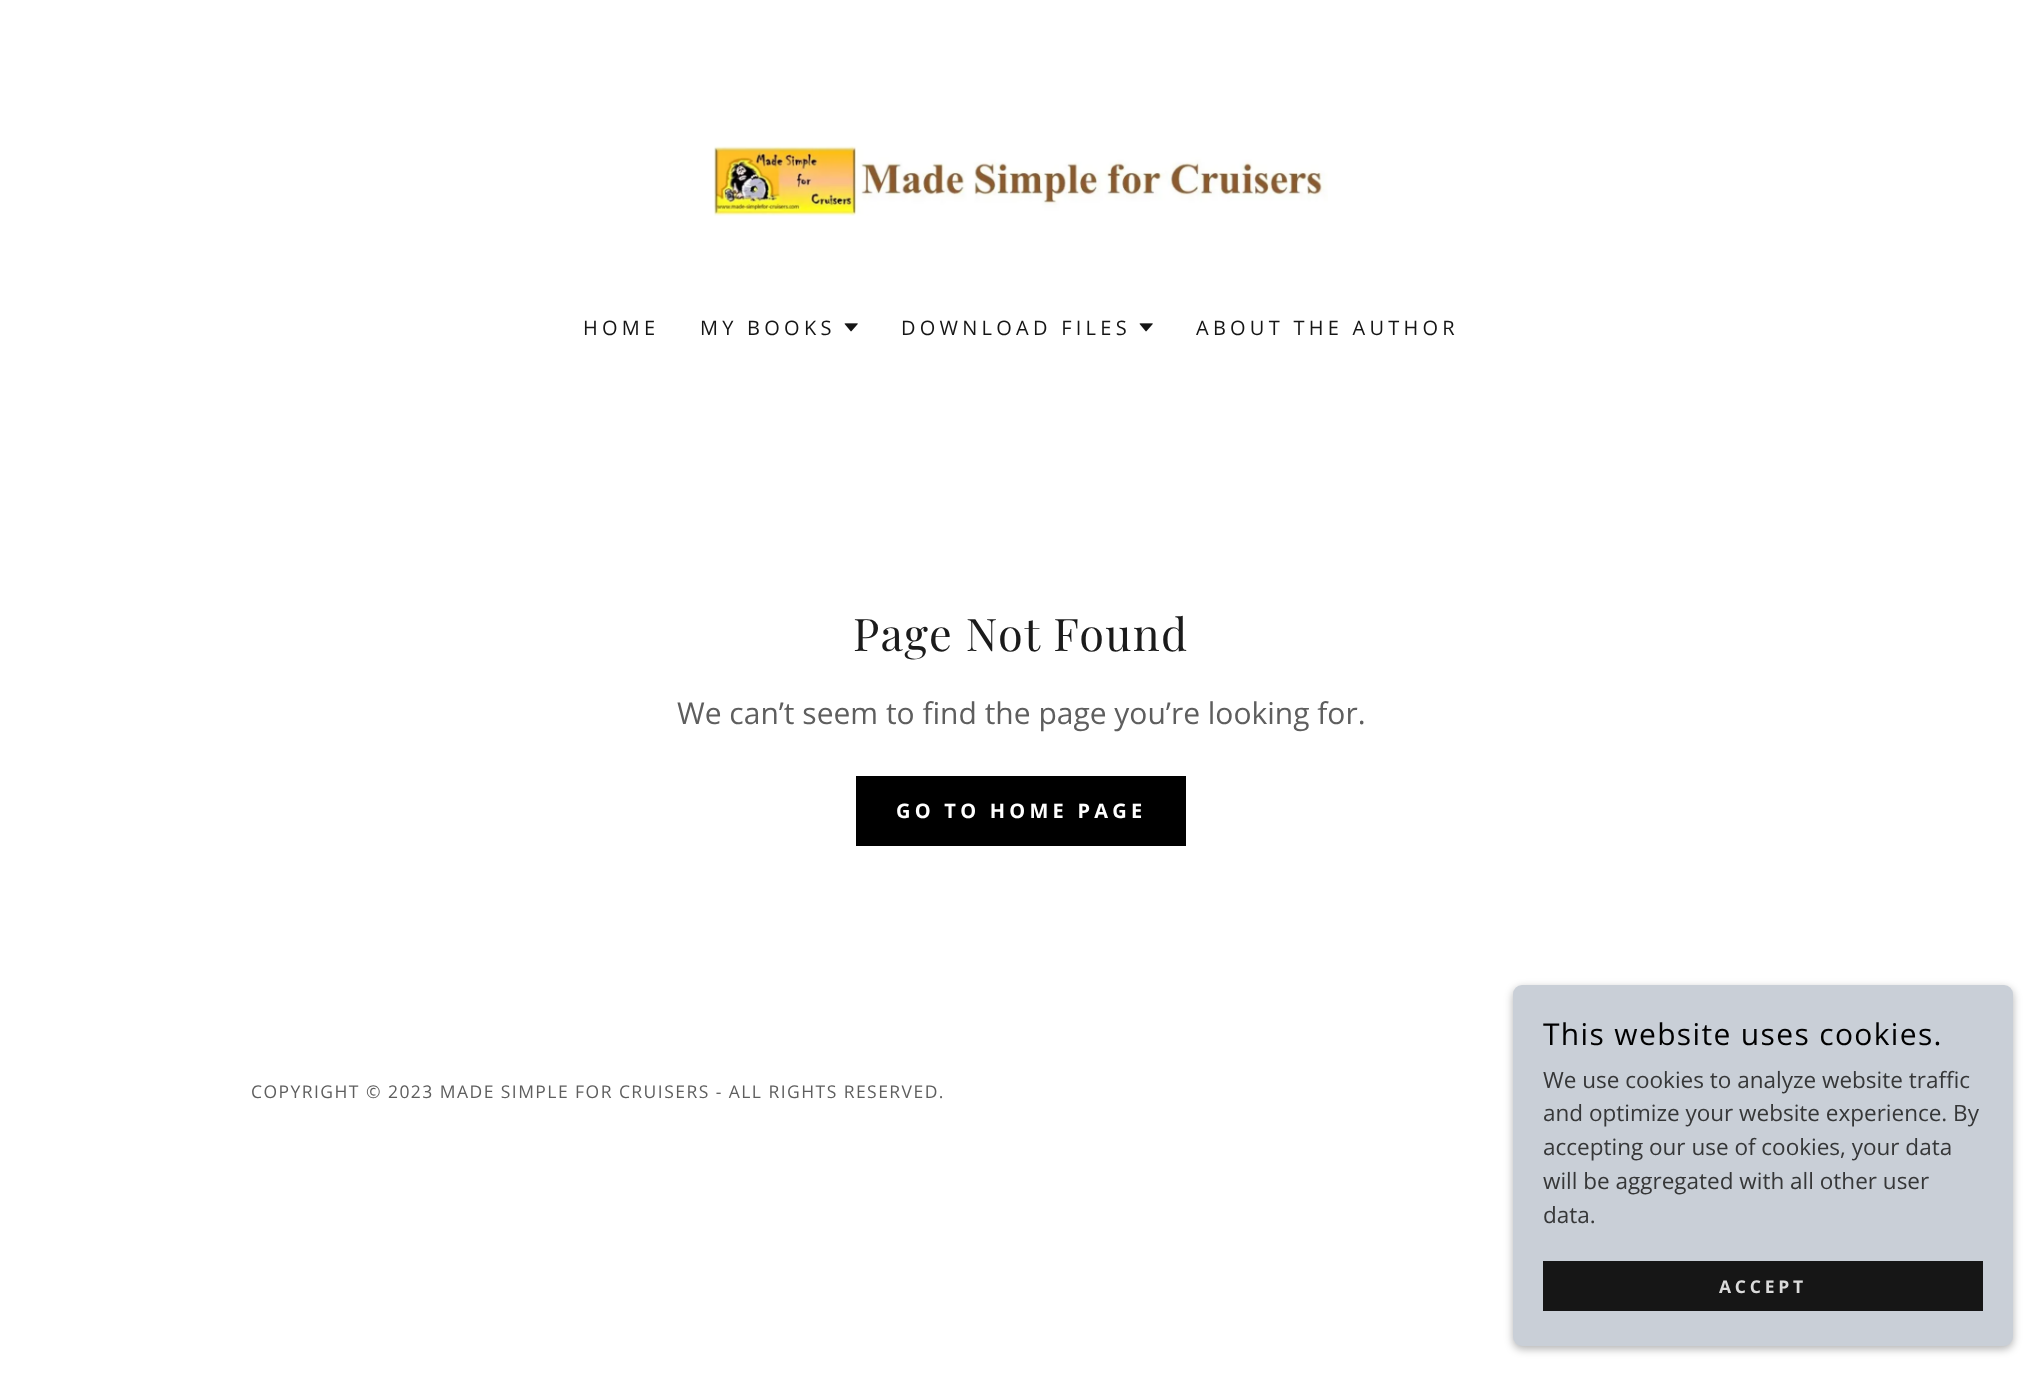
<svg xmlns="http://www.w3.org/2000/svg" width="2042" height="1376">
<style>
.a{font:20px Open Sans;letter-spacing:4.25px;fill:#151515}
.b{font:45px Playfair Display;letter-spacing:1.4px;fill:#1b1b1b}
.c{font:30px Open Sans;fill:#5e5e5e}
.d{font:bold 20px Open Sans;letter-spacing:4.25px;fill:#fff}
.e{font:17.5px Open Sans;letter-spacing:1.45px;fill:#5e5e5e}
.f{font:30px Open Sans;letter-spacing:1.35px;fill:#000}
.g{font:22.5px Open Sans;fill:#363738}
.h{font:bold 17.5px Open Sans;letter-spacing:3.75px;fill:#dbdbdb}
</style>
<rect width="100%" height="100%" fill="#fff"/>
<image href="1.png" x="713" y="146" width="615" height="70"/>
<image href="2.png" x="844" y="323" width="14" height="9"/>
<image href="2.png" x="1139" y="323" width="14" height="9"/>
<path fill="#000" d="M856 776h330v70H856z"/>
<rect fill="#0000004d" filter="blur(4px)" x="1513" y="988" width="500" height="361" rx="9"/>
<rect fill="#c9cfd7" x="1513" y="985" width="500" height="361" rx="9"/>
<path fill="#161616" d="M1543 1261h440v50H1543z"/>
<text class="a" x="583" y="335">HOME</text>
<text class="a" x="700" y="335">MY BOOKS</text>
<text class="a" x="901" y="335">DOWNLOAD FILES</text>
<text class="a" x="1196" y="335">ABOUT THE AUTHOR</text>
<text class="b" x="853" y="651">Page Not Found</text>
<text class="c" x="677" y="724">We can’t seem to find the page you’re looking for.</text>
<text class="d" x="896" y="818">GO TO HOME PAGE</text>
<text class="e" x="251" y="1098">COPYRIGHT © 2023 MADE SIMPLE FOR CRUISERS - ALL RIGHTS RESERVED.</text>
<text class="f" x="1543" y="1045">This website uses cookies.</text>
<text class="g" x="1543" y="1088">We use cookies to analyze website traffic</text>
<text class="g" x="1543" y="1121">and optimize your website experience. By</text>
<text class="g" x="1543" y="1155">accepting our use of cookies, your data</text>
<text class="g" x="1543" y="1189">will be aggregated with all other user</text>
<text class="g" x="1543" y="1223">data.</text>
<text class="h" x="1719" y="1293">ACCEPT</text>
</svg>
